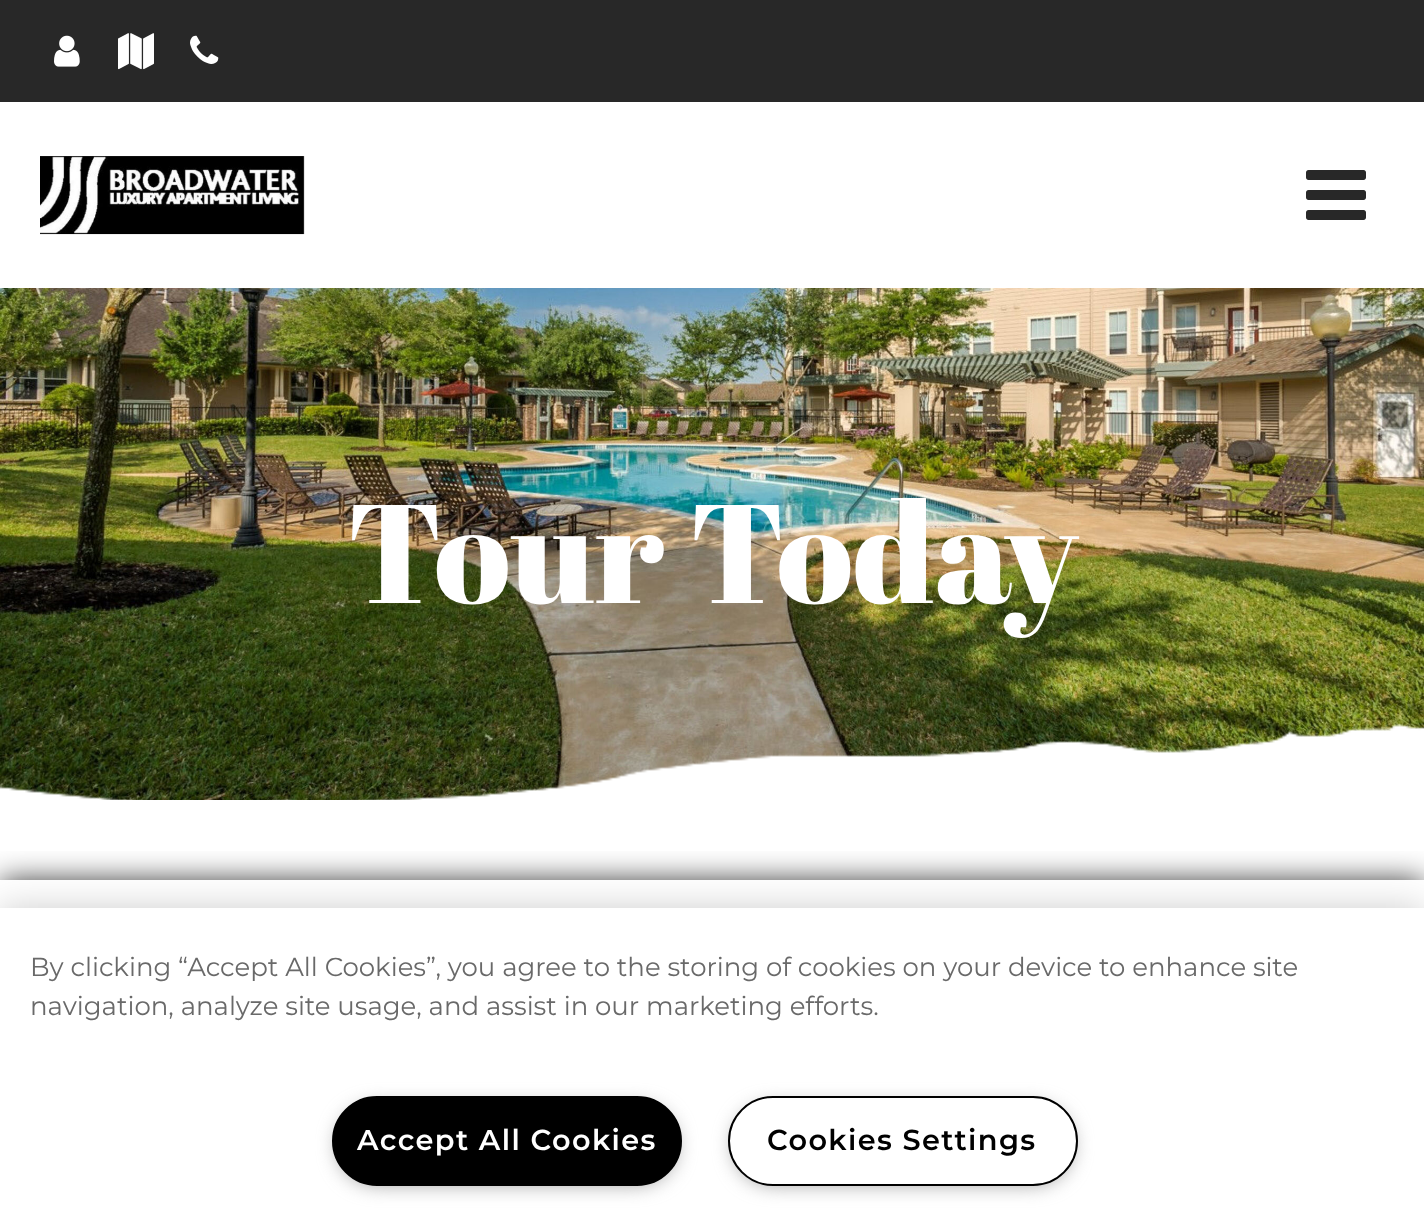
<svg xmlns="http://www.w3.org/2000/svg" width="1424" height="1226">
<style>
.a{font:140px Abril Fatface;fill:#fff}
.b{font:26px Montserrat;fill:#696969}
.c{font:600 28.75px Montserrat;letter-spacing:1.4px;fill:#fff}
.d{font:600 28.75px Montserrat;letter-spacing:1.4px;fill:#000}
</style>
<defs>
<clipPath id="clip1"><path d="M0 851h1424v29H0z"/></clipPath>
</defs>
<rect width="100%" height="100%" fill="#fff"/>
<path fill="#282828" d="M0 0h1424v102H0z"/>
<image href="1.png" x="54" y="35" width="26" height="32"/>
<image href="2.png" x="118" y="33" width="36" height="37"/>
<image href="3.png" x="190" y="35" width="29" height="29"/>
<image href="4.png" x="40" y="156" width="265" height="79"/>
<image href="5.png" x="1306" y="170" width="60" height="50"/>
<image href="6.png" x="0" y="288" width="1424" height="512"/>
<image href="7.png" x="0" y="723" width="1424" height="77"/>
<g clip-path="url(#clip1)">
<path fill="#000000bf" filter="blur(15px)" d="M0 880h1424v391H0z"/>
</g>
<path fill="#00000033" filter="blur(18px)" d="M0 908h1424v318H0z"/>
<path fill="#fff" d="M0 908h1424v318H0z"/>
<rect fill="#999" filter="blur(10px)" x="338" y="1106" width="338" height="78" rx="39"/>
<rect fill="#000" stroke="#000" stroke-width="2" x="333" y="1097" width="348" height="88" rx="44"/>
<rect fill="#999" filter="blur(10px)" x="734" y="1106" width="338" height="78" rx="39"/>
<rect fill="#fff" stroke="#000" stroke-width="2" x="729" y="1097" width="348" height="88" rx="44"/>
<text class="a" x="347" y="603">Tour Today</text>
<text class="b" x="30" y="976">By clicking “Accept All Cookies”, you agree to the storing of cookies on your device to enhance site</text>
<text class="b" x="30" y="1015">navigation, analyze site usage, and assist in our marketing efforts.</text>
<text class="c" x="357" y="1150">Accept All Cookies</text>
<text class="d" x="767" y="1150">Cookies Settings</text>
</svg>
